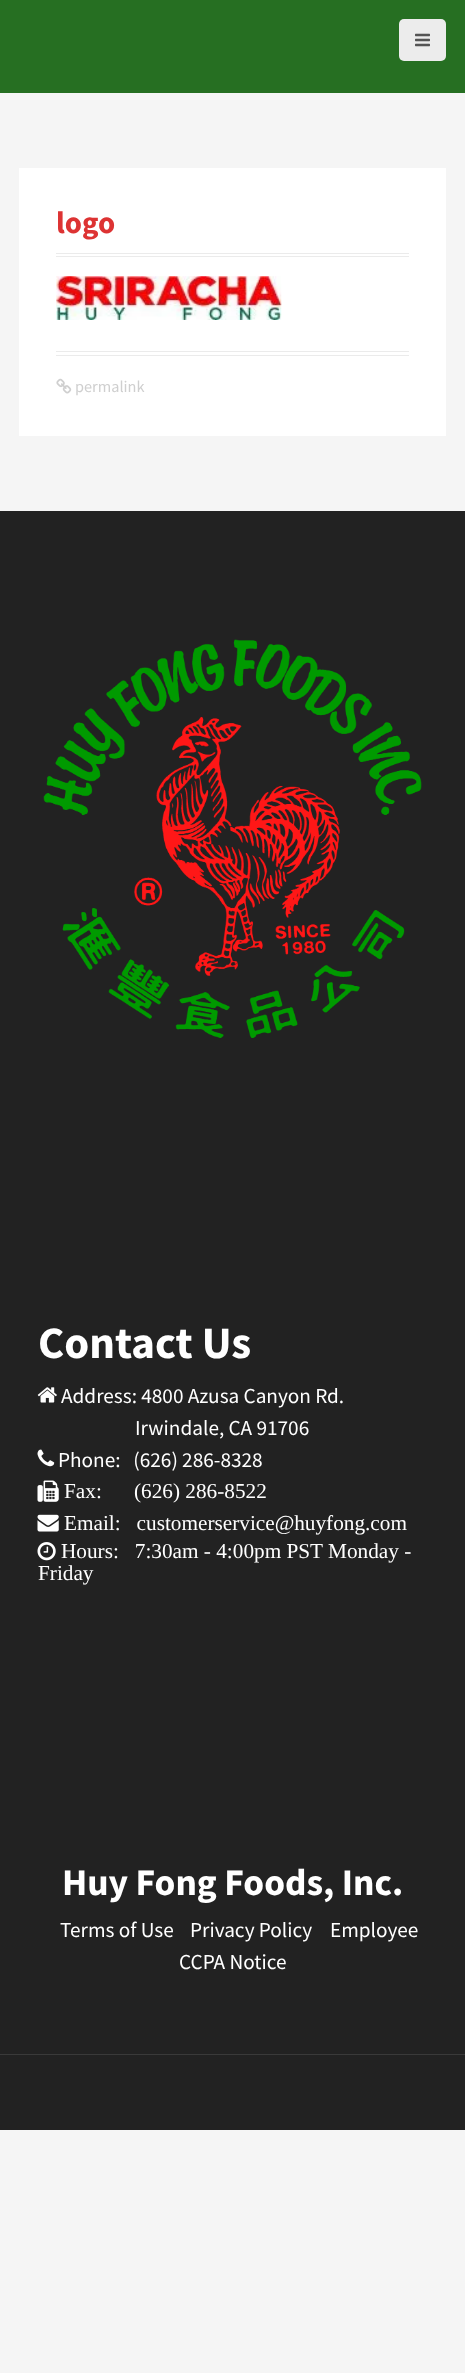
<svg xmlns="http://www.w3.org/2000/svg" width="465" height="2373">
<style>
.a{font:bold 31px Source Sans Pro;fill:#d33}
.b{font:16.25px Source Sans Pro;fill:#cfcfcf}
.c{font:bold 45px Source Sans Pro;fill:#fff}
.d{font:21.25px Source Sans Pro;fill:#fff}
.e{font:21.25px Liberation Serif;fill:#fff}
.f{font:bold 37.5px Source Sans Pro;fill:#fff}
</style>
<rect width="100%" height="100%" fill="#f5f5f5"/>
<path fill="#266f22" d="M0 0h465v93H0z"/>
<rect fill="#ececec" x="399" y="19" width="47" height="42" rx="5"/>
<image href="1.png" x="415" y="33" width="15" height="14"/>
<path fill="#fff" d="M19 168h427v268H19z"/>
<path fill="#ebebeb" d="M56 253h353v1H56z"/>
<path fill="#ebebeb" d="M56 256h353v1H56z"/>
<image href="2.png" x="56" y="276" width="226" height="44"/>
<path fill="#ebebeb" d="M56 351h353v1H56z"/>
<path fill="#ebebeb" d="M56 355h353v1H56z"/>
<image href="3.png" x="56" y="378" width="16" height="16"/>
<path fill="#222" d="M0 511h465v1543H0z"/>
<image href="4.png" x="43" y="639" width="379" height="399"/>
<image href="5.png" x="37" y="1387" width="20" height="16"/>
<image href="6.png" x="37" y="1449" width="18" height="18"/>
<image href="7.png" x="37" y="1480" width="22" height="22"/>
<image href="8.png" x="37" y="1514" width="22" height="18"/>
<image href="9.png" x="37" y="1542" width="19" height="19"/>
<path fill="#222" d="M0 2055h465v75H0z"/>
<path fill="#3a3a3a" d="M0 2054h465v1H0z"/>
<text class="a" x="56" y="233">logo</text>
<text class="b" x="75" y="392">permalink</text>
<text class="c" x="38" y="1358">Contact Us</text>
<text class="d" x="61" y="1403">Address: 4800 Azusa Canyon Rd.</text>
<text class="d" x="135" y="1435">Irwindale, CA 91706</text>
<text class="d" xml:space="preserve" x="58" y="1467">Phone:   (626) 286-8328</text>
<text class="e" x="64" y="1498">Fax:</text>
<text class="e" x="134" y="1498">(626) 286-8522</text>
<text class="e" xml:space="preserve" x="64" y="1530">Email:   customerservice@huyfong.com</text>
<text class="e" xml:space="preserve" x="61" y="1558">Hours:   7:30am - 4:00pm PST Monday -</text>
<text class="e" x="38" y="1580">Friday</text>
<text class="f" x="62" y="1895">Huy Fong Foods, Inc.</text>
<text class="d" x="60" y="1937">Terms of Use</text>
<text class="d" x="190" y="1937">Privacy Policy</text>
<text class="d" x="330" y="1937">Employee</text>
<text class="d" x="179" y="1969">CCPA Notice</text>
</svg>
